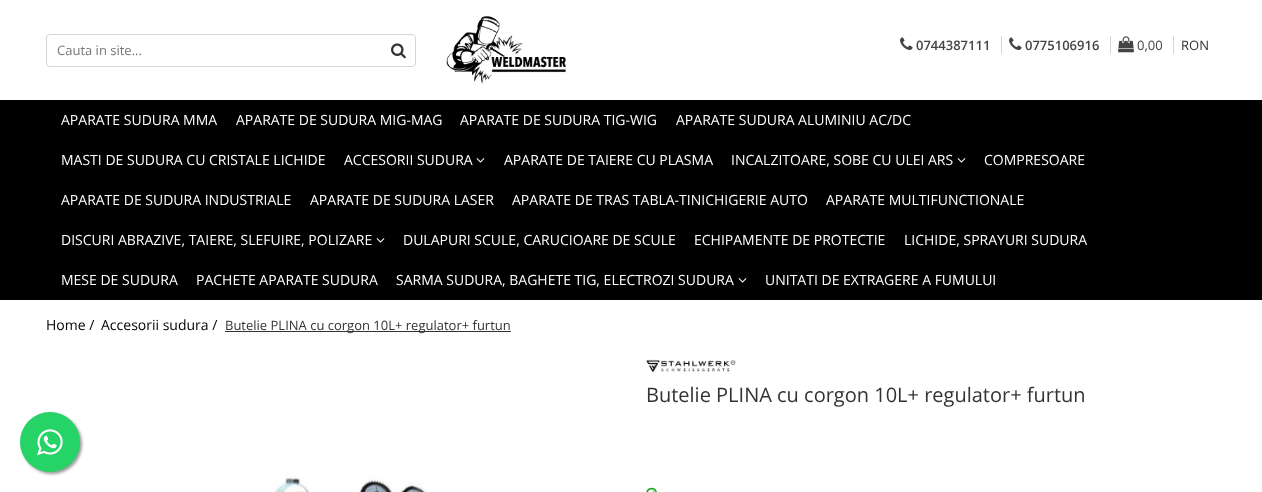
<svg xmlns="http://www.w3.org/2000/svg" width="1262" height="492">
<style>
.a{font:13px Open Sans;fill:#757575}
.b{font:600 13px Open Sans;fill:#444}
.c{font:13px Open Sans;fill:#444}
.d{font:13px Open Sans;fill:#333}
.e{font:14px Open Sans;fill:#fff}
.f{font:14px Open Sans;fill:#000}
.g{font:20px Open Sans;fill:#333}
</style>
<rect width="100%" height="100%" fill="#fff"/>
<rect fill="none" stroke="#d5d5d5" x="46.5" y="34.5" width="369" height="32" rx="3.5"/>
<image href="1.png" x="391" y="43" width="15" height="16"/>
<image href="2.png" x="446" y="16" width="120" height="68"/>
<image href="3.png" x="900" y="37" width="13" height="13"/>
<path fill="#d5d5d5" d="M1001 36h1v18H1001z"/>
<image href="3.png" x="1009" y="37" width="13" height="13"/>
<path fill="#d5d5d5" d="M1110 36h1v18H1110z"/>
<image href="4.png" x="1118" y="36" width="16" height="17"/>
<path fill="#d5d5d5" d="M1173 36h1v18H1173z"/>
<path fill="#000" d="M0 100h1262v200H0z"/>
<image href="5.png" x="476" y="158" width="9" height="5"/>
<image href="5.png" x="957" y="158" width="9" height="5"/>
<image href="5.png" x="376" y="238" width="9" height="5"/>
<image href="5.png" x="738" y="278" width="9" height="5"/>
<path fill="#333" d="M225 331h286v1H225z"/>
<image href="6.png" x="646" y="359" width="90" height="13"/>
<image href="7.png" x="273" y="476" width="154" height="16"/>
<image href="8.png" x="646" y="487" width="11" height="5"/>
<rect fill="#999" filter="blur(1.5px)" x="22" y="414" width="60" height="60" rx="30"/>
<circle fill="#25d366" cx="50" cy="442" r="30"/>
<image href="9.png" x="37" y="429" width="26" height="27"/>
<text class="a" x="57" y="55">Cauta in site...</text>
<text class="b" x="916" y="50">0744387111</text>
<text class="b" x="1025" y="50">0775106916</text>
<text class="c" x="1137" y="50">0,00</text>
<text class="d" x="1181" y="50">RON</text>
<text class="e" x="61" y="125">APARATE SUDURA MMA</text>
<text class="e" x="236" y="125">APARATE DE SUDURA MIG-MAG</text>
<text class="e" x="460" y="125">APARATE DE SUDURA TIG-WIG</text>
<text class="e" x="676" y="125">APARATE SUDURA ALUMINIU AC/DC</text>
<text class="e" x="61" y="165">MASTI DE SUDURA CU CRISTALE LICHIDE</text>
<text class="e" x="344" y="165">ACCESORII SUDURA</text>
<text class="e" x="504" y="165">APARATE DE TAIERE CU PLASMA</text>
<text class="e" x="731" y="165">INCALZITOARE, SOBE CU ULEI ARS</text>
<text class="e" x="984" y="165">COMPRESOARE</text>
<text class="e" x="61" y="205">APARATE DE SUDURA INDUSTRIALE</text>
<text class="e" x="310" y="205">APARATE DE SUDURA LASER</text>
<text class="e" x="512" y="205">APARATE DE TRAS TABLA-TINICHIGERIE AUTO</text>
<text class="e" x="826" y="205">APARATE MULTIFUNCTIONALE</text>
<text class="e" x="61" y="245">DISCURI ABRAZIVE, TAIERE, SLEFUIRE, POLIZARE</text>
<text class="e" x="403" y="245">DULAPURI SCULE, CARUCIOARE DE SCULE</text>
<text class="e" x="694" y="245">ECHIPAMENTE DE PROTECTIE</text>
<text class="e" x="904" y="245">LICHIDE, SPRAYURI SUDURA</text>
<text class="e" x="61" y="285">MESE DE SUDURA</text>
<text class="e" x="196" y="285">PACHETE APARATE SUDURA</text>
<text class="e" x="396" y="285">SARMA SUDURA, BAGHETE TIG, ELECTROZI SUDURA</text>
<text class="e" x="765" y="285">UNITATI DE EXTRAGERE A FUMULUI</text>
<text class="f" x="46" y="330">Home /</text>
<text class="f" x="101" y="330">Accesorii sudura /</text>
<text class="d" x="225" y="330">Butelie PLINA cu corgon 10L+ regulator+ furtun</text>
<text class="g" x="646" y="402">Butelie PLINA cu corgon 10L+ regulator+ furtun</text>
</svg>
